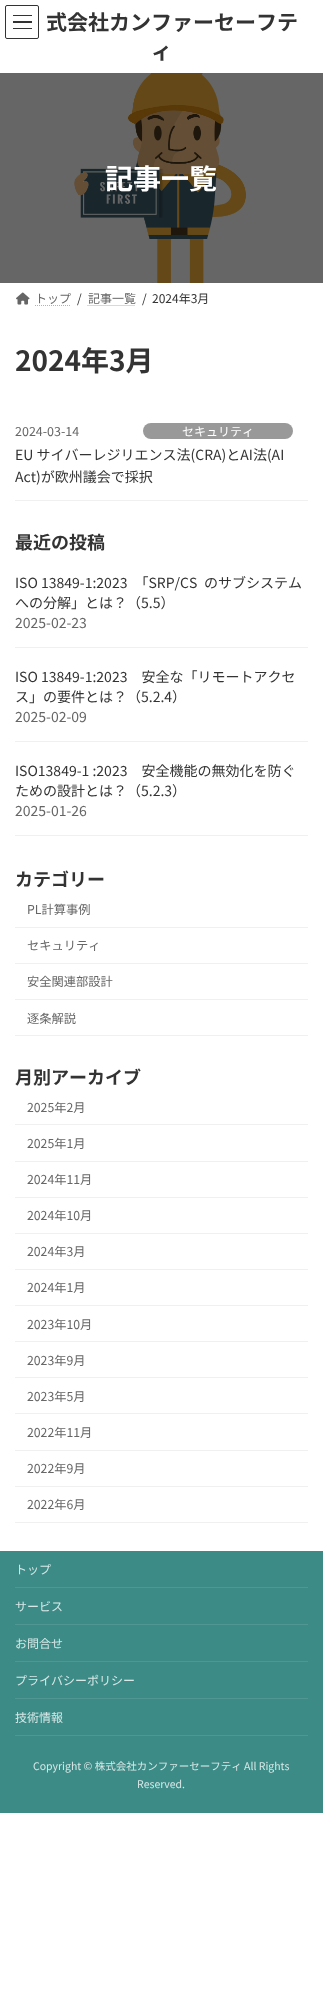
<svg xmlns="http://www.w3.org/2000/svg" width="323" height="1995">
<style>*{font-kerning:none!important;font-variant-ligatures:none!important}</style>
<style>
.a{font:bold 21px Noto Sans JP;fill:#333}
.b{font:bold 28px Noto Sans JP;fill:#fff}
.c{font:12px Noto Sans JP;fill:#666}
.d{font:12px Noto Sans JP;fill:#333}
.e{font:bold 28px Noto Sans JP;fill:#333}
.f{font:12.5px Noto Sans JP;fill:#666}
.g{font:12px Noto Sans JP;fill:#fff}
.h{font:14px Noto Sans JP;fill:#333}
.i{font:bold 18px Noto Sans JP;fill:#333}
.j{font:14px Noto Sans JP;fill:#666}
.k{font:12.25px Noto Sans JP;fill:#666}
.l{font:12px Noto Sans JP;fill:#d8e8e7}
.m{font:10.5px Noto Sans JP;fill:#d8e8e7}
</style>
<rect width="100%" height="100%" fill="#fff"/>
<path fill="#666" d="M0 73h323v210H0z"/>
<path fill="#000000cc" d="M13 15h19v1H13z"/>
<path fill="#000000cc" d="M13 21h19v2H13z"/>
<path fill="#000000cc" d="M13 28h19v1H13z"/>
<rect fill="none" stroke="#333" x="5.5" y="5.5" width="33" height="33" rx="1.5"/>
<image href="1.png" x="74" y="73" width="172" height="210"/>
<image href="2.png" x="16" y="292" width="14" height="13"/>
<path fill="none" stroke="#b3b3b3" stroke-dasharray="1 1" d="M35 305.5h36"/>
<path fill="none" stroke="#b3b3b3" stroke-dasharray="1 1" d="M87.5 305.5h48"/>
<path fill="#f0f0f0" d="M15 500h293v1H15z"/>
<rect fill="#999" x="143" y="423" width="150" height="16" rx="8"/>
<path fill="#f0f0f0" d="M15 647h293v1H15z"/>
<path fill="#f0f0f0" d="M15 741h293v1H15z"/>
<path fill="#f0f0f0" d="M15 835h293v1H15z"/>
<path fill="#f0f0f0" d="M15 927h293v1H15z"/>
<path fill="#f0f0f0" d="M15 963h293v1H15z"/>
<path fill="#f0f0f0" d="M15 999h293v1H15z"/>
<path fill="#f0f0f0" d="M15 1035h293v1H15z"/>
<path fill="#f0f0f0" d="M15 1124h293v1H15z"/>
<path fill="#f0f0f0" d="M15 1161h293v1H15z"/>
<path fill="#f0f0f0" d="M15 1197h293v1H15z"/>
<path fill="#f0f0f0" d="M15 1233h293v1H15z"/>
<path fill="#f0f0f0" d="M15 1269h293v1H15z"/>
<path fill="#f0f0f0" d="M15 1305h293v1H15z"/>
<path fill="#f0f0f0" d="M15 1341h293v1H15z"/>
<path fill="#f0f0f0" d="M15 1377h293v1H15z"/>
<path fill="#f0f0f0" d="M15 1413h293v1H15z"/>
<path fill="#f0f0f0" d="M15 1450h293v1H15z"/>
<path fill="#f0f0f0" d="M15 1486h293v1H15z"/>
<path fill="#f0f0f0" d="M15 1522h293v1H15z"/>
<path fill="#3c8b86" d="M0 1551h323v262H0z"/>
<path fill="#509792" d="M15 1587h293v1H15z"/>
<path fill="#509792" d="M15 1624h293v1H15z"/>
<path fill="#509792" d="M15 1661h293v1H15z"/>
<path fill="#509792" d="M15 1698h293v1H15z"/>
<path fill="#509792" d="M15 1735h293v1H15z"/>
<text class="a" x="46" y="30">式会社カンファーセーフテ</text>
<text class="a" x="151" y="59">ィ</text>
<text class="b" x="105" y="189">記事一覧</text>
<text class="c" x="35" y="303">トップ</text>
<text class="d" x="77" y="303">/</text>
<text class="c" x="88" y="303">記事一覧</text>
<text class="d" x="142" y="303">/</text>
<text class="d" x="152" y="303">2024年3月</text>
<text class="e" x="15" y="371">2024年3月</text>
<text class="f" x="15" y="436">2024-03-14</text>
<text class="g" x="182" y="436">セキュリティ</text>
<text class="h" x="15" y="460">EU サイバーレジリエンス法(CRA)とAI法(AI</text>
<text class="h" x="15" y="482">Act)が欧州議会で採択</text>
<text class="i" x="15" y="549">最近の投稿</text>
<text class="h" x="15" y="588">ISO 13849-1:2023　「SRP/CS</text>
<text class="h" x="204" y="588">のサブシステム</text>
<text class="h" x="15" y="608">への分解」とは？（5.5）</text>
<text class="j" x="15" y="628">2025-02-23</text>
<text class="h" x="15" y="682">ISO 13849-1:2023　安全な「リモートアクセ</text>
<text class="h" x="15" y="702">ス」の要件とは？（5.2.4）</text>
<text class="j" x="15" y="722">2025-02-09</text>
<text class="h" x="15" y="776">ISO13849-1 :2023　安全機能の無効化を防ぐ</text>
<text class="h" x="15" y="796">ための設計とは？（5.2.3）</text>
<text class="j" x="15" y="816">2025-01-26</text>
<text class="i" x="15" y="886">カテゴリー</text>
<text class="k" x="27" y="914">PL計算事例</text>
<text class="k" x="27" y="950">セキュリティ</text>
<text class="k" x="27" y="986">安全関連部設計</text>
<text class="k" x="27" y="1023">逐条解説</text>
<text class="i" x="15" y="1084">月別アーカイブ</text>
<text class="k" x="27" y="1112">2025年2月</text>
<text class="k" x="27" y="1148">2025年1月</text>
<text class="k" x="27" y="1184">2024年11月</text>
<text class="k" x="27" y="1220">2024年10月</text>
<text class="k" x="27" y="1256">2024年3月</text>
<text class="k" x="27" y="1292">2024年1月</text>
<text class="k" x="27" y="1329">2023年10月</text>
<text class="k" x="27" y="1365">2023年9月</text>
<text class="k" x="27" y="1401">2023年5月</text>
<text class="k" x="27" y="1437">2022年11月</text>
<text class="k" x="27" y="1473">2022年9月</text>
<text class="k" x="27" y="1509">2022年6月</text>
<text class="l" x="15" y="1574">トップ</text>
<text class="l" x="15" y="1611">サービス</text>
<text class="l" x="15" y="1648">お問合せ</text>
<text class="l" x="15" y="1685">プライバシーポリシー</text>
<text class="l" x="15" y="1722">技術情報</text>
<text class="m" x="33" y="1770">Copyright © 株式会社カンファーセーフティ All Rights</text>
<text class="m" x="137" y="1788">Reserved.</text>
</svg>
